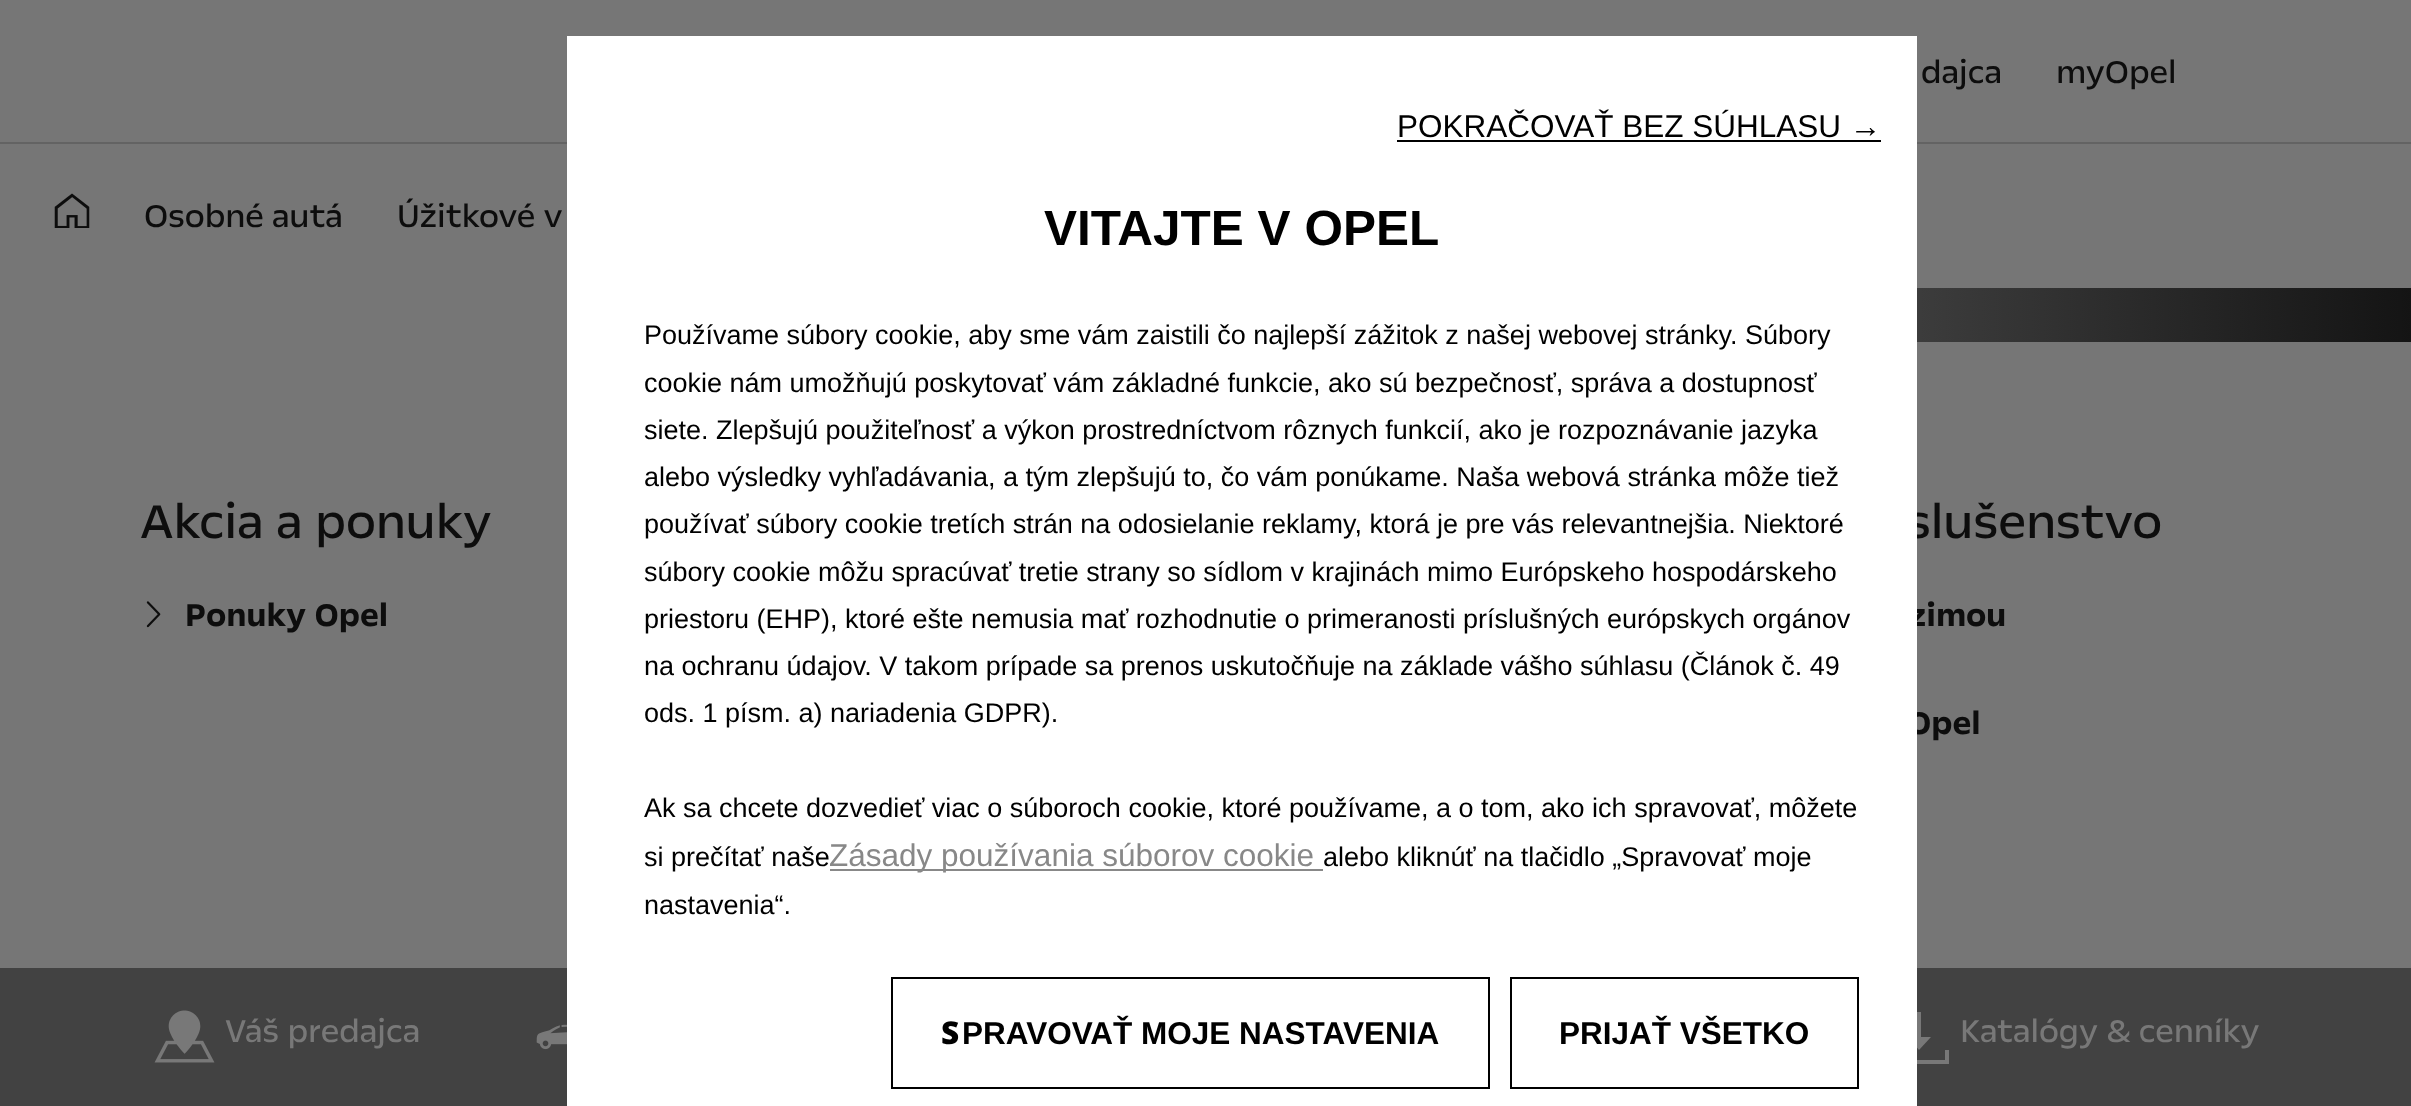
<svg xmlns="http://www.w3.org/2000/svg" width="2411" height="1106">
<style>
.a{font:36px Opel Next;fill:#0d0d0d}
.b{font:54px Opel Next;fill:#0d0d0d}
.c{font:bold 36px Opel Next;fill:#0d0d0d}
.d{font:36px Opel Next;fill:#787878}
.e{font:31.5px Liberation Sans;fill:#000}
.f{font:bold 49.5px Liberation Sans;fill:#000}
.g{font:27px Liberation Sans;fill:#000}
.h{font:31.5px Liberation Sans;fill:#888}
.i{font:900 31.5px Noto Sans;fill:#000}
.j{font:bold 31.5px Liberation Sans;fill:#000}
</style>
<defs>
<linearGradient id="g1" gradientUnits="userSpaceOnUse" x1="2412" y1="315" x2="0" y2="315"><stop offset="0" stop-color="#141414"/><stop offset="0.5" stop-color="#767676"/></linearGradient>
</defs>
<rect width="100%" height="100%" fill="#767676"/>
<path fill="#424242" d="M0 968h2411v138H0z"/>
<path fill="#636363" d="M0 142h2411v2H0z"/>
<image href="1.png" x="54" y="193" width="36" height="35"/>
<path fill="url(#g1)" d="M1237 288h1174v54H1237z"/>
<image href="2.png" x="146" y="601" width="15" height="27"/>
<image href="3.png" x="154" y="1010" width="61" height="53"/>
<image href="4.png" x="536" y="1024" width="31" height="26"/>
<path fill="#787878" d="M1894 1050v10h51v-10h4v14h-60v-14zm27-38v25h10l-12 13l-11-13h9v-25z"/>
<text class="a" x="1921" y="83">dajca</text>
<text class="a" x="2056" y="83">myOpel</text>
<text class="a" x="144" y="227">Osobné autá</text>
<text class="a" x="397" y="227">Úžitkové v</text>
<text class="b" x="140" y="538">Akcia a ponuky</text>
<text class="c" x="185" y="626">Ponuky Opel</text>
<text class="b" x="1906" y="538">slušenstvo</text>
<text class="c" x="1909" y="626">zimou</text>
<text class="c" x="1907" y="734">Opel</text>
<text class="d" x="225" y="1042">Váš predajca</text>
<text class="d" x="1960" y="1042">Katalógy &amp; cenníky</text>
<path fill="#fff" d="M567 36h1350v1070H567z"/>
<text class="e" x="1397" y="137">POKRAČOVAŤ BEZ SÚHLASU →</text>
<path fill="#000" d="M1397 140h484v2H1397z"/>
<text class="f" x="1044" y="245">VITAJTE V OPEL</text>
<text class="g" x="644" y="344">Používame súbory cookie, aby sme vám zaistili čo najlepší zážitok z našej webovej stránky. Súbory</text>
<text class="g" x="644" y="392">cookie nám umožňujú poskytovať vám základné funkcie, ako sú bezpečnosť, správa a dostupnosť</text>
<text class="g" x="644" y="439">siete. Zlepšujú použiteľnosť a výkon prostredníctvom rôznych funkcií, ako je rozpoznávanie jazyka</text>
<text class="g" x="644" y="486">alebo výsledky vyhľadávania, a tým zlepšujú to, čo vám ponúkame. Naša webová stránka môže tiež</text>
<text class="g" x="644" y="533">používať súbory cookie tretích strán na odosielanie reklamy, ktorá je pre vás relevantnejšia. Niektoré</text>
<text class="g" x="644" y="581">súbory cookie môžu spracúvať tretie strany so sídlom v krajinách mimo Európskeho hospodárskeho</text>
<text class="g" x="644" y="628">priestoru (EHP), ktoré ešte nemusia mať rozhodnutie o primeranosti príslušných európskych orgánov</text>
<text class="g" x="644" y="675">na ochranu údajov. V takom prípade sa prenos uskutočňuje na základe vášho súhlasu (Článok č. 49</text>
<text class="g" x="644" y="722">ods. 1 písm. a) nariadenia GDPR).</text>
<text class="g" x="644" y="817">Ak sa chcete dozvedieť viac o súboroch cookie, ktoré používame, a o tom, ako ich spravovať, môžete</text>
<text class="g" x="644" y="866">si prečítať naše</text>
<path fill="#888" d="M830 869h493v2H830z"/>
<text class="h" x="829" y="866">Zásady používania súborov cookie</text>
<text class="g" x="1323" y="866">alebo kliknúť na tlačidlo „Spravovať moje</text>
<text class="g" x="644" y="914">nastavenia“.</text>
<path fill="none" stroke="#000" stroke-width="2" d="M892 978h597v110H892z"/>
<text class="i" x="941" y="1044">S</text>
<text class="j" x="962" y="1044">PRAVOVAŤ MOJE NASTAVENIA</text>
<path fill="none" stroke="#000" stroke-width="2" d="M1511 978h347v110H1511z"/>
<text class="j" x="1559" y="1044">PRIJAŤ VŠETKO</text>
</svg>
